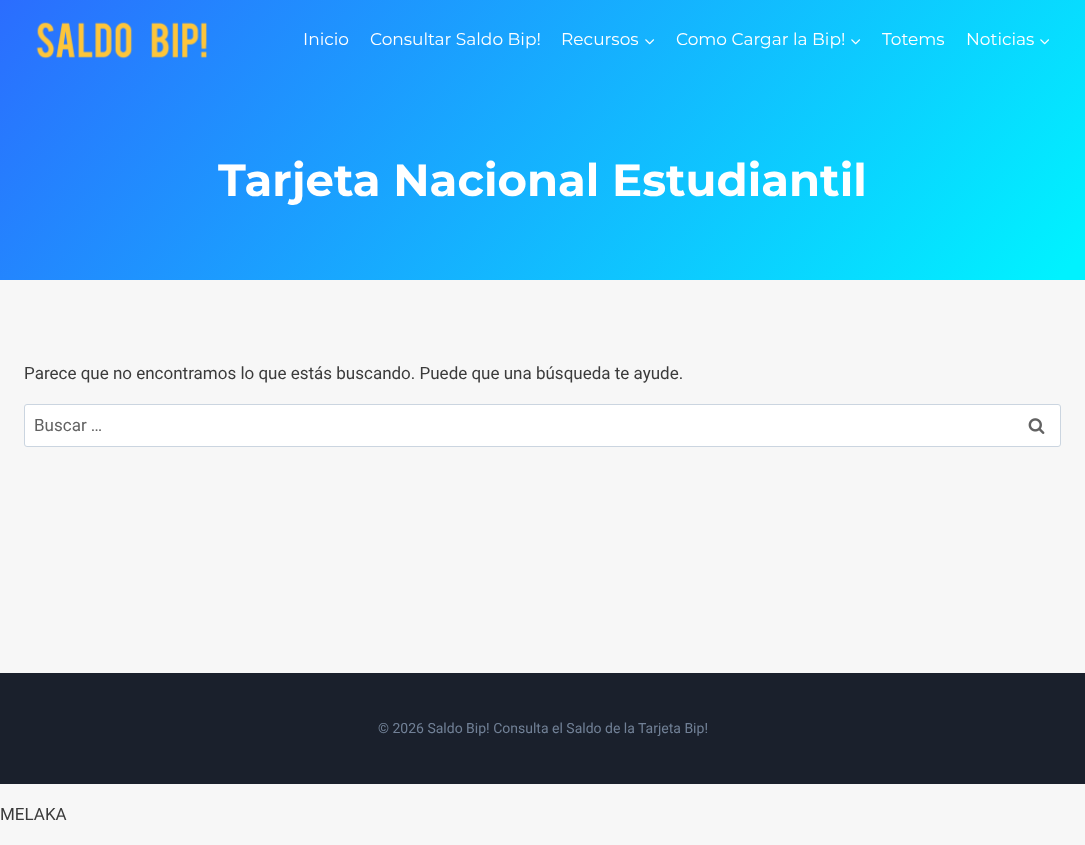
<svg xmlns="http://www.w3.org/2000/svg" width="1085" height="845">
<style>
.a{font:17px Montserrat;fill:#fff}
.b{font:bold 45px Montserrat;fill:#fff}
.c{font:17px Roboto;fill:#3b3b3b}
.d{font:17px Roboto;fill:#626262}
.e{font:14px Roboto;fill:#718096}
</style>
<defs>
<linearGradient id="g1" gradientUnits="userSpaceOnUse" x1="155" y1="-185" x2="930" y2="465"><stop offset="0" stop-color="#2b6dfe"/><stop offset="0.98" stop-color="#00f2ff"/></linearGradient>
</defs>
<rect width="100%" height="100%" fill="#f7f7f7"/>
<path fill="url(#g1)" d="M0 0h1085v280H0z"/>
<image href="1.png" x="36" y="22" width="171" height="37"/>
<image href="2.png" x="645" y="39" width="10" height="6"/>
<image href="3.png" x="851" y="39" width="10" height="6"/>
<image href="4.png" x="1040" y="39" width="10" height="6"/>
<rect fill="#fff" stroke="#cbd5e0" x="24.5" y="404.5" width="1036" height="42" rx="2.5"/>
<image href="5.png" x="1028" y="418" width="17" height="16"/>
<path fill="#1a202c" d="M0 673h1085v111H0z"/>
<text class="a" x="303" y="45">Inicio</text>
<text class="a" x="370" y="45">Consultar Saldo Bip!</text>
<text class="a" x="561" y="45">Recursos</text>
<text class="a" x="676" y="45">Como Cargar la Bip!</text>
<text class="a" x="882" y="45">Totems</text>
<text class="a" x="966" y="45">Noticias</text>
<text class="b" x="218" y="196">Tarjeta Nacional Estudiantil</text>
<text class="c" x="24" y="379">Parece que no encontramos lo que estás buscando. Puede que una búsqueda te ayude.</text>
<text class="d" x="34" y="431">Buscar …</text>
<text class="e" x="378" y="733">© 2026 Saldo Bip! Consulta el Saldo de la Tarjeta Bip!</text>
<text class="c" x="0" y="820">MELAKA</text>
</svg>
